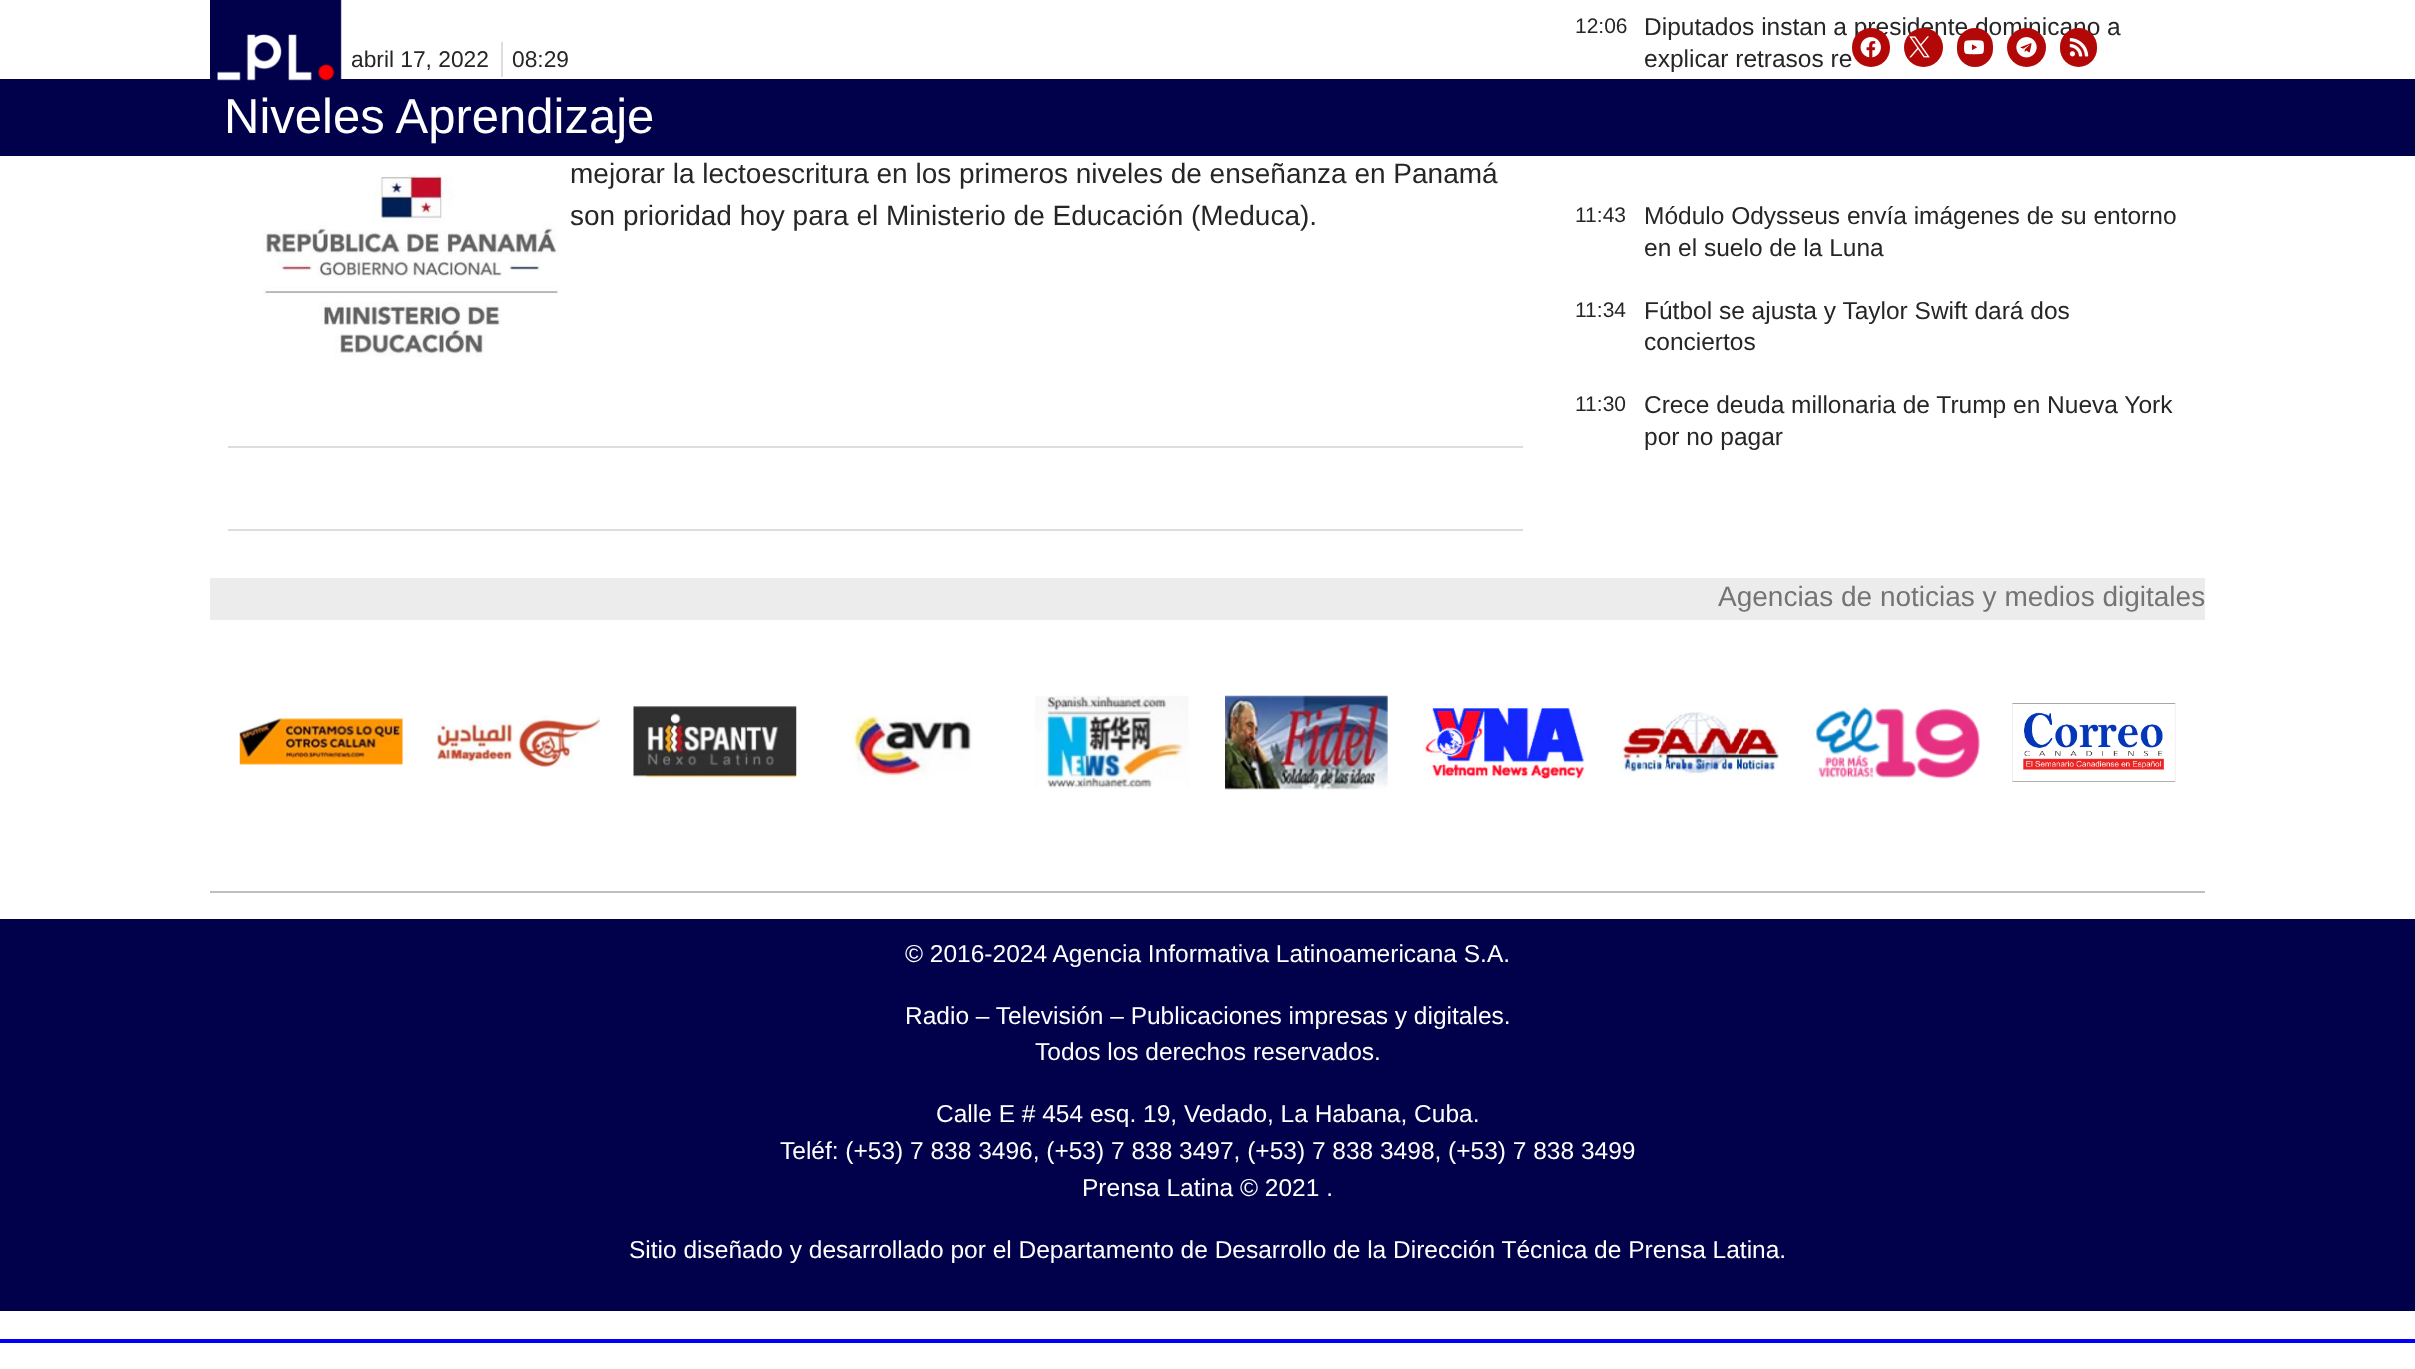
<svg xmlns="http://www.w3.org/2000/svg" width="2415" height="1369">
<style>
.a{font:22.75px Liberation Sans;fill:#262626}
.b{font:28px Liberation Sans;fill:#262626}
.c{font:21px Liberation Sans;fill:#262626}
.d{font:24.5px Liberation Sans;fill:#262626}
.e{font:49px Liberation Sans;fill:#fff}
.f{font:28px Liberation Sans;fill:#757474}
.g{font:24.5px Liberation Sans;fill:#fff}
</style>
<rect width="100%" height="100%" fill="#fff"/>
<path fill="#00004b" d="M0 79h2415v77H0z"/>
<image href="1.png" x="210" y="0" width="132" height="81"/>
<path fill="#ddd" d="M501 42h2v35H501z"/>
<image href="7.png" x="262" y="174" width="297" height="183"/>
<path fill="#ddd" d="M228 446h1295v2H228z"/>
<path fill="#ddd" d="M228 529h1295v2H228z"/>
<path fill="#ececec" d="M210 578h1995v42H210z"/>
<image href="8.png" x="239" y="718" width="164" height="47"/>
<image href="9.png" x="437" y="715" width="164" height="53"/>
<image href="10.png" x="633" y="706" width="164" height="72"/>
<image href="11.png" x="852" y="715" width="120" height="62"/>
<image href="12.png" x="1035" y="695" width="154" height="93"/>
<image href="13.png" x="1225" y="695" width="163" height="95"/>
<image href="14.png" x="1423" y="705" width="162" height="74"/>
<image href="15.png" x="1618" y="712" width="161" height="64"/>
<image href="16.png" x="1816" y="707" width="164" height="72"/>
<image href="17.png" x="2012" y="703" width="164" height="79"/>
<path fill="#bfbfbf" d="M210 891h1995v2H210z"/>
<path fill="#00004b" d="M0 919h2415v392H0z"/>
<path fill="#00f" d="M0 1339h2415v4H0z"/>
<text class="a" x="351" y="67">abril 17, 2022</text>
<text class="a" x="512" y="67">08:29</text>
<text class="b" x="570" y="183">mejorar la lectoescritura en los primeros niveles de enseñanza en Panamá</text>
<text class="b" x="570" y="225">son prioridad hoy para el Ministerio de Educación (Meduca).</text>
<text class="c" x="1575" y="33">12:06</text>
<text class="d" x="1644" y="35">Diputados instan a presidente dominicano a</text>
<rect fill="#b30808" x="2060" y="28" width="37" height="39" rx="18.5"/>
<image href="6.png" x="2069" y="38" width="20" height="19"/>
<circle fill="#b30808" cx="2026.5" cy="47.5" r="19.5"/>
<image href="5.png" x="2016" y="37" width="21" height="21"/>
<rect fill="#b30808" x="1957" y="28" width="36" height="39" rx="18"/>
<image href="4.png" x="1964" y="40" width="20" height="15"/>
<circle fill="#b30808" cx="1923.5" cy="47.5" r="19.5"/>
<image href="3.png" x="1909" y="36" width="21" height="22"/>
<rect fill="#b30808" x="1852" y="28" width="38" height="39" rx="19"/>
<image href="2.png" x="1860" y="37" width="21" height="21"/>
<text class="d" x="1644" y="67">explicar retrasos re</text>
<text class="c" x="1575" y="222">11:43</text>
<text class="d" x="1644" y="224">Módulo Odysseus envía imágenes de su entorno</text>
<text class="d" x="1644" y="256">en el suelo de la Luna</text>
<text class="c" x="1575" y="317">11:34</text>
<text class="d" x="1644" y="319">Fútbol se ajusta y Taylor Swift dará dos</text>
<text class="d" x="1644" y="350">conciertos</text>
<text class="c" x="1575" y="411">11:30</text>
<text class="d" x="1644" y="413">Crece deuda millonaria de Trump en Nueva York</text>
<text class="d" x="1644" y="445">por no pagar</text>
<text class="e" x="224" y="133">Niveles Aprendizaje</text>
<text class="f" x="1718" y="606">Agencias de noticias y medios digitales</text>
<text class="g" x="905" y="962">© 2016-2024 Agencia Informativa Latinoamericana S.A.</text>
<text class="g" x="905" y="1024">Radio – Televisión – Publicaciones impresas y digitales.</text>
<text class="g" x="1035" y="1060">Todos los derechos reservados.</text>
<text class="g" x="936" y="1122">Calle E # 454 esq. 19, Vedado, La Habana, Cuba.</text>
<text class="g" x="780" y="1159">Teléf: (+53) 7 838 3496, (+53) 7 838 3497, (+53) 7 838 3498, (+53) 7 838 3499</text>
<text class="g" x="1082" y="1196">Prensa Latina © 2021 .</text>
<text class="g" x="629" y="1258">Sitio diseñado y desarrollado por el Departamento de Desarrollo de la Dirección Técnica de Prensa Latina.</text>
</svg>
